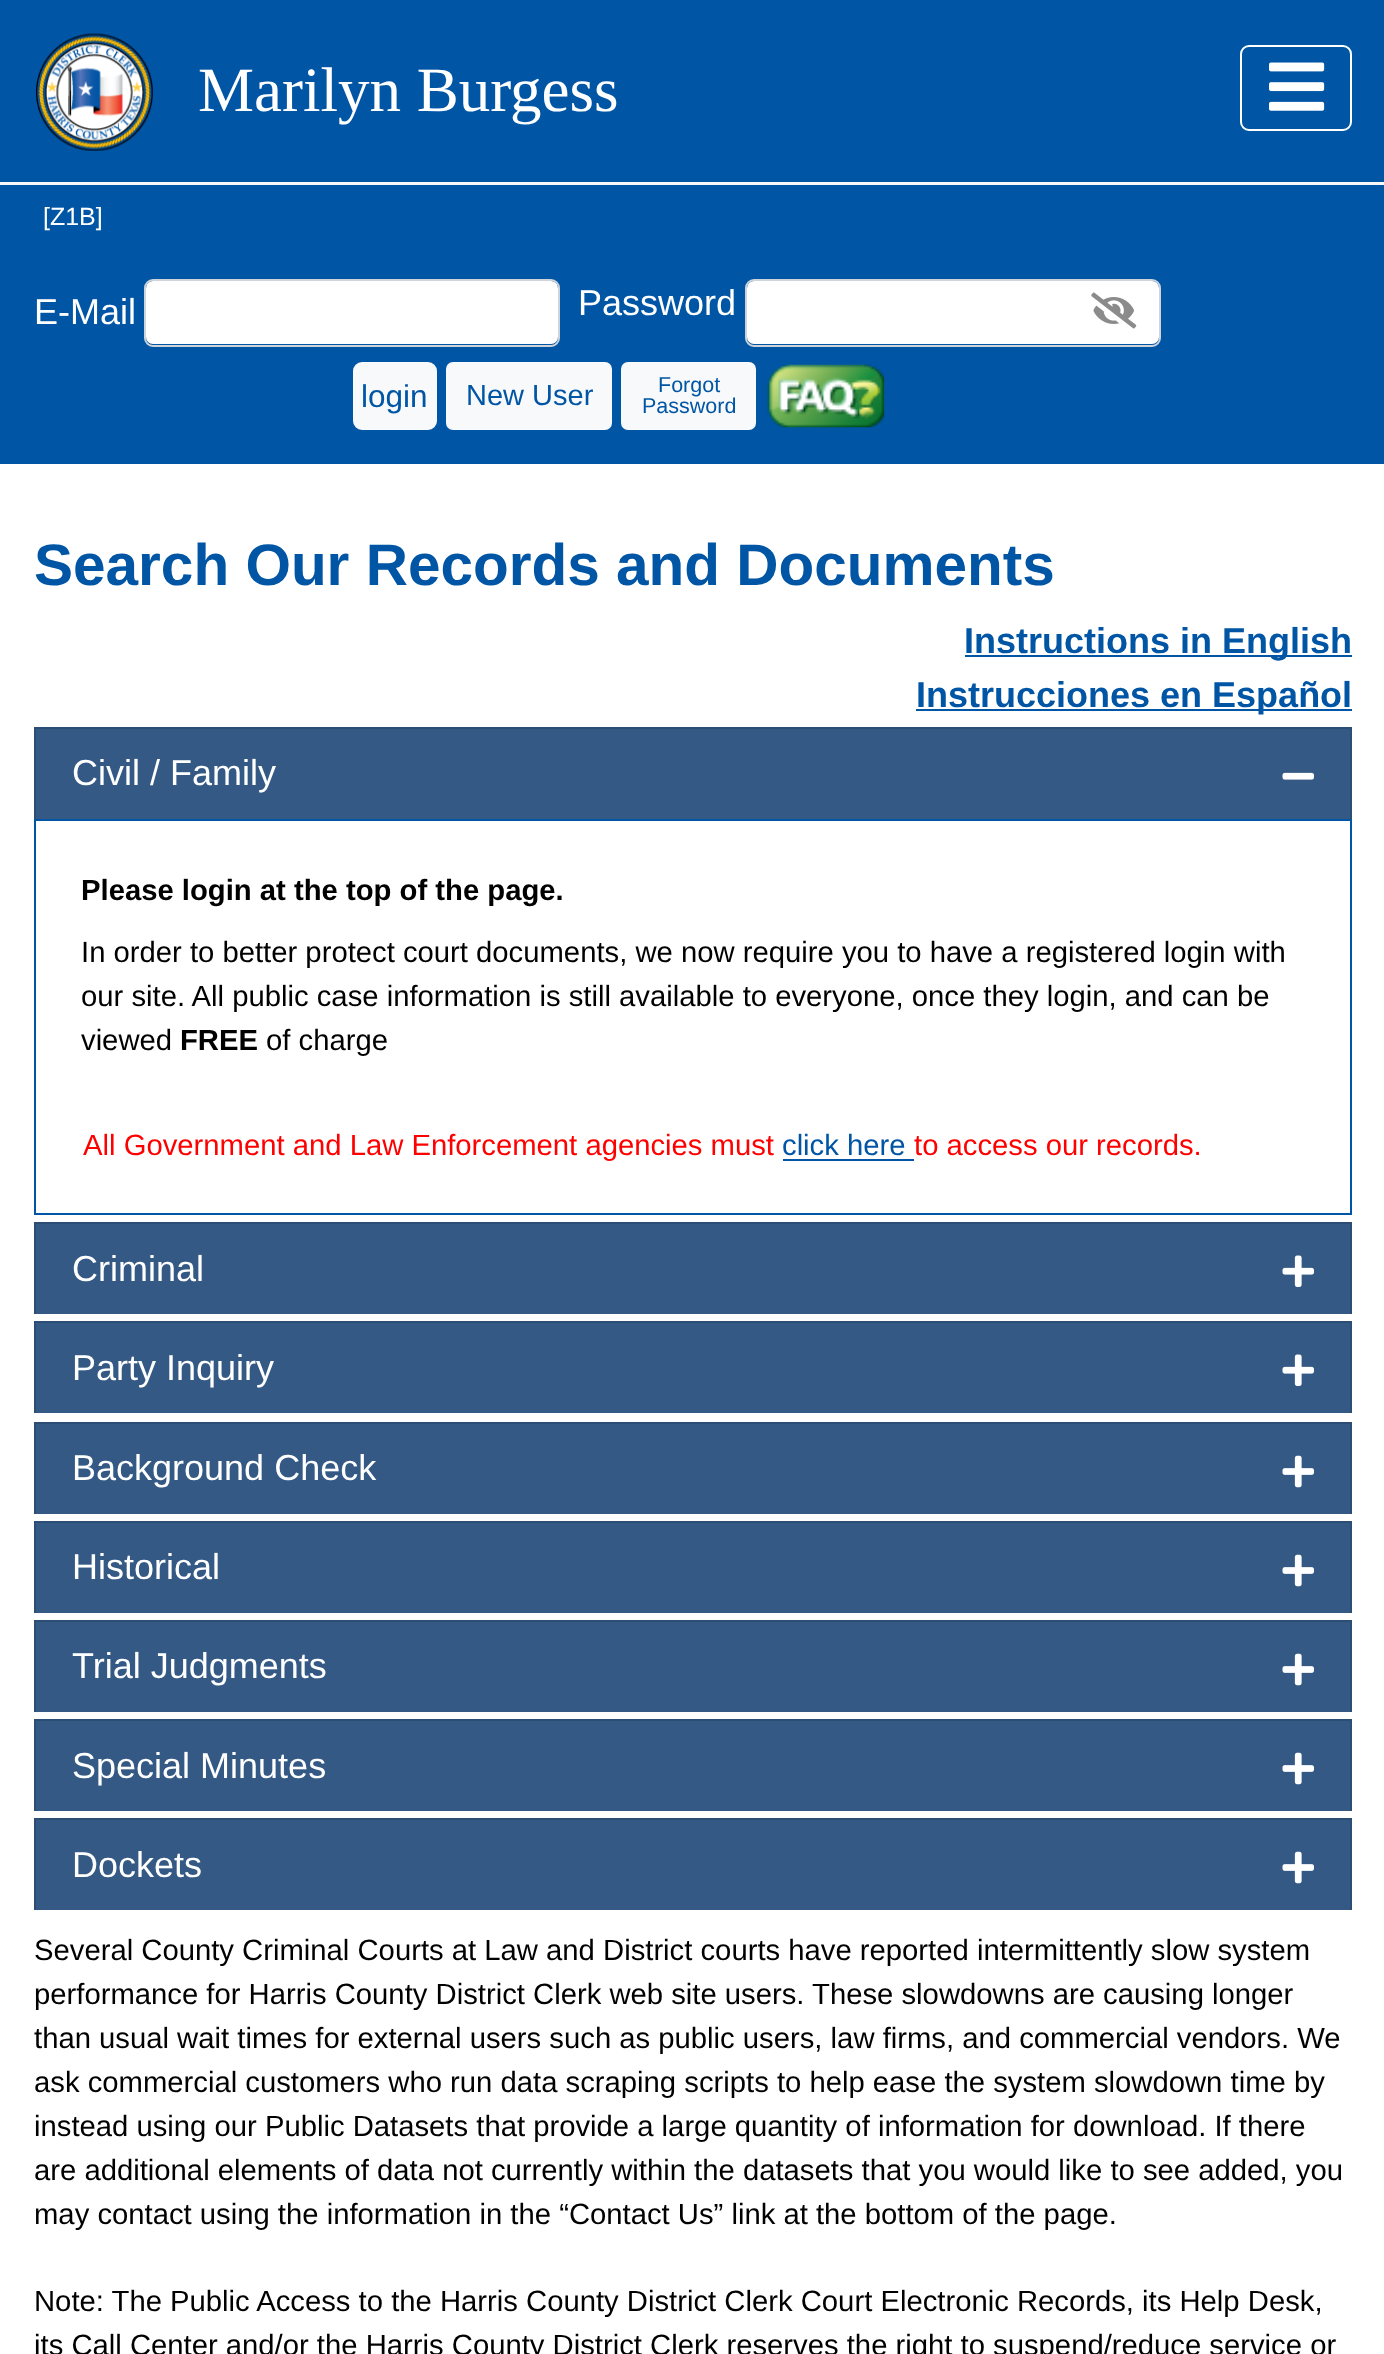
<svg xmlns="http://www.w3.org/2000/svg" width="1384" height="2354">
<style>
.a{font:63px Liberation Serif;fill:#fff}
.b{font:25px Liberation Sans;fill:#fff}
.c{font:36px Liberation Sans;fill:#fff}
.d{font:31.5px Liberation Sans;fill:#0055a5}
.e{font:29px Liberation Sans;fill:#0055a5}
.f{font:21.5px Liberation Sans;fill:#0055a5}
.g{font:bold 58.5px Liberation Sans;fill:#0055a5}
.h{font:bold 36px Liberation Sans;fill:#0055a5}
.i{font:bold 29.25px Liberation Sans;fill:#000}
.j{font:29.25px Liberation Sans;fill:#000}
.k{font:29.25px Liberation Sans;fill:#f00}
.l{font:29.25px Liberation Sans;fill:#0055a5}
</style>
<rect width="100%" height="100%" fill="#f8f8f8"/>
<path fill="#0055a5" d="M0 185h1384v279H0z"/>
<path fill="#0055a5" d="M0 0h1384v182H0z"/>
<image href="1.png" x="36" y="33" width="117" height="118"/>
<rect fill="none" stroke="#fff" stroke-width="2" x="1241" y="46" width="110" height="84" rx="8"/>
<image href="2.png" x="1269" y="62" width="56" height="49"/>
<rect fill="#fff" x="146" y="281" width="412" height="63" rx="7"/>
<rect fill="none" stroke="#ced4da" stroke-width="2" x="145" y="280" width="414" height="66" rx="8"/>
<rect fill="#fff" x="747" y="281" width="412" height="63" rx="7"/>
<rect fill="none" stroke="#ced4da" stroke-width="2" x="746" y="280" width="414" height="66" rx="8"/>
<image href="3.png" x="1091" y="292" width="46" height="37"/>
<rect fill="#f8f9fa" stroke="#f8f9fa" stroke-width="2" x="354" y="363" width="82" height="66" rx="8"/>
<rect fill="#f8f9fa" stroke="#f8f9fa" stroke-width="2" x="447" y="363" width="164" height="66" rx="6"/>
<rect fill="#f8f9fa" stroke="#f8f9fa" stroke-width="2" x="622" y="363" width="133" height="66" rx="6"/>
<image href="4.png" x="767" y="364" width="118" height="64"/>
<path fill="#fff" d="M0 464h1384v1890H0z"/>
<path fill="#0055a5" d="M965 655h387v2H965z"/>
<path fill="#0055a5" d="M916 709h436v2H916z"/>
<path fill="#335984" d="M34 727h1318v92H34z"/>
<path fill="#2d4e74" d="M34 727h1318l-2 2h-1314z"/>
<path fill="#0000001f" d="M1352 727v92h-2v-90z"/>
<path fill="#0000001f" d="M34 819v-92l2 2v90z"/>
<image href="5.png" x="1282" y="772" width="32" height="8"/>
<path fill="none" stroke="#0055a5" stroke-width="2" d="M35 820h1316v394H35z"/>
<path fill="#0055a5" d="M783 1159h131v2H783z"/>
<path fill="#335984" d="M34 1222h1318v92H34z"/>
<path fill="#2d4e74" d="M34 1222h1318l-2 2h-1314z"/>
<path fill="#0000001f" d="M1352 1222v92h-2v-90z"/>
<path fill="#0000001f" d="M34 1314v-92l2 2v90z"/>
<image href="6.png" x="1282" y="1255" width="32" height="32"/>
<path fill="#335984" d="M34 1321h1318v92H34z"/>
<path fill="#2d4e74" d="M34 1321h1318l-2 2h-1314z"/>
<path fill="#0000001f" d="M1352 1321v92h-2v-90z"/>
<path fill="#0000001f" d="M34 1413v-92l2 2v90z"/>
<image href="6.png" x="1282" y="1354" width="32" height="32"/>
<path fill="#335984" d="M34 1422h1318v92H34z"/>
<path fill="#2d4e74" d="M34 1422h1318l-2 2h-1314z"/>
<path fill="#0000001f" d="M1352 1422v92h-2v-90z"/>
<path fill="#0000001f" d="M34 1514v-92l2 2v90z"/>
<image href="7.png" x="1282" y="1455" width="32" height="33"/>
<path fill="#335984" d="M34 1521h1318v92H34z"/>
<path fill="#2d4e74" d="M34 1521h1318l-2 2h-1314z"/>
<path fill="#0000001f" d="M1352 1521v92h-2v-90z"/>
<path fill="#0000001f" d="M34 1613v-92l2 2v90z"/>
<image href="7.png" x="1282" y="1554" width="32" height="33"/>
<path fill="#335984" d="M34 1620h1318v92H34z"/>
<path fill="#2d4e74" d="M34 1620h1318l-2 2h-1314z"/>
<path fill="#0000001f" d="M1352 1620v92h-2v-90z"/>
<path fill="#0000001f" d="M34 1712v-92l2 2v90z"/>
<image href="7.png" x="1282" y="1653" width="32" height="33"/>
<path fill="#335984" d="M34 1719h1318v92H34z"/>
<path fill="#2d4e74" d="M34 1719h1318l-2 2h-1314z"/>
<path fill="#0000001f" d="M1352 1719v92h-2v-90z"/>
<path fill="#0000001f" d="M34 1811v-92l2 2v90z"/>
<image href="7.png" x="1282" y="1752" width="32" height="33"/>
<path fill="#335984" d="M34 1818h1318v92H34z"/>
<path fill="#2d4e74" d="M34 1818h1318l-2 2h-1314z"/>
<path fill="#0000001f" d="M1352 1818v92h-2v-90z"/>
<path fill="#0000001f" d="M34 1910v-92l2 2v90z"/>
<image href="7.png" x="1282" y="1851" width="32" height="33"/>
<text class="a" x="198" y="111">Marilyn Burgess</text>
<text class="b" x="43" y="225">[Z1B]</text>
<text class="c" x="578" y="315">Password</text>
<text class="c" x="34" y="324">E-Mail</text>
<text class="d" x="361" y="407">login</text>
<text class="e" x="466" y="405">New User</text>
<text class="f" x="658" y="392">Forgot</text>
<text class="f" x="642" y="413">Password</text>
<text class="g" x="34" y="585">Search Our Records and Documents</text>
<text class="h" x="964" y="653">Instructions in English</text>
<text class="h" x="916" y="707">Instrucciones en Español</text>
<text class="c" x="72" y="785">Civil / Family</text>
<text class="i" x="81" y="900">Please login at the top of the page.</text>
<text class="j" x="81" y="962">In order to better protect court documents, we now require you to have a registered login with</text>
<text class="j" x="81" y="1006">our site. All public case information is still available to everyone, once they login, and can be</text>
<text class="j" x="81" y="1050">viewed</text>
<text class="i" x="180" y="1050">FREE</text>
<text class="j" x="266" y="1050">of charge</text>
<text class="k" x="83" y="1155">All Government and Law Enforcement agencies must</text>
<text class="l" x="782" y="1155">click here</text>
<text class="k" x="914" y="1155">to access our records.</text>
<text class="c" x="72" y="1281">Criminal</text>
<text class="c" x="72" y="1380">Party Inquiry</text>
<text class="c" x="72" y="1480">Background Check</text>
<text class="c" x="72" y="1579">Historical</text>
<text class="c" x="72" y="1678">Trial Judgments</text>
<text class="c" x="72" y="1778">Special Minutes</text>
<text class="c" x="72" y="1877">Dockets</text>
<text class="j" x="34" y="1960">Several County Criminal Courts at Law and District courts have reported intermittently slow system</text>
<text class="j" x="34" y="2004">performance for Harris County District Clerk web site users. These slowdowns are causing longer</text>
<text class="j" x="34" y="2048">than usual wait times for external users such as public users, law firms, and commercial vendors. We</text>
<text class="j" x="34" y="2092">ask commercial customers who run data scraping scripts to help ease the system slowdown time by</text>
<text class="j" x="34" y="2136">instead using our Public Datasets that provide a large quantity of information for download. If there</text>
<text class="j" x="34" y="2180">are additional elements of data not currently within the datasets that you would like to see added, you</text>
<text class="j" x="34" y="2224">may contact using the information in the “Contact Us” link at the bottom of the page.</text>
<text class="j" x="34" y="2311">Note: The Public Access to the Harris County District Clerk Court Electronic Records, its Help Desk,</text>
<text class="j" x="34" y="2355">its Call Center and/or the Harris County District Clerk reserves the right to suspend/reduce service or</text>
</svg>
